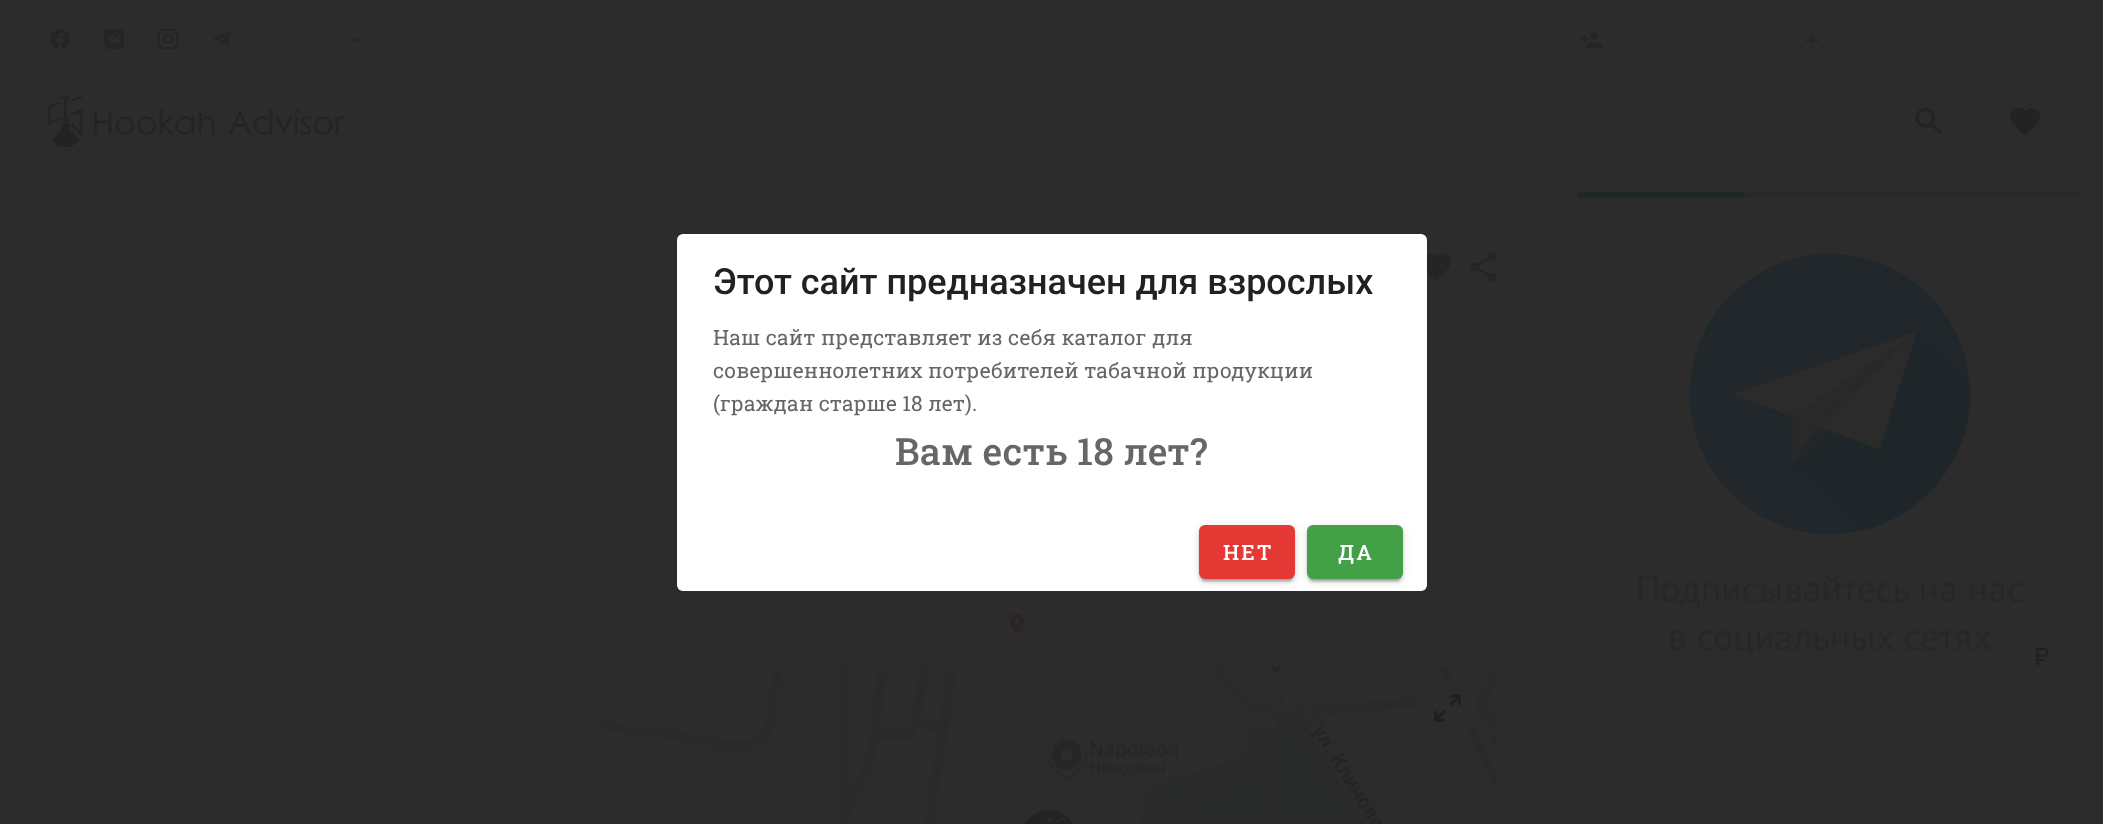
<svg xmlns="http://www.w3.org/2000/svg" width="2103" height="824">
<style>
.a{font:500 36px Roboto;fill:#212121}
.b{font:21px Roboto Slab;letter-spacing:0.15px;fill:#666}
.c{font:500 37.5px Roboto Slab;letter-spacing:0.15px;fill:#666}
.d{font:500 21px Roboto Slab;letter-spacing:2px;fill:#fff}
</style>
<rect width="100%" height="100%" fill="#2c2c2c"/>
<image href="1.png" x="50" y="29" width="20" height="20"/>
<image href="2.png" x="104" y="29" width="20" height="20"/>
<image href="3.png" x="158" y="29" width="20" height="20"/>
<image href="4.png" x="213" y="31" width="18" height="16"/>
<image href="5.png" x="352" y="37" width="10" height="6"/>
<image href="6.png" x="1580" y="32" width="23" height="17"/>
<image href="7.png" x="1805" y="33" width="14" height="15"/>
<image href="8.png" x="47" y="96" width="298" height="51"/>
<image href="9.png" x="1915" y="108" width="27" height="27"/>
<path fill="#232323" d="M2025 135.5c-4.5-4-11.5-9.5-14-15c-4.5-9.5 7-17 14-9.5c7-7.5 18.5 0 14 9.5c-2.5 5.5-9.5 11-14 15z"/>
<path fill="#252525" d="M1435.5 281c-4.5-4-11.5-9.5-14-15c-4.5-9.5 7-17 14-9.5c7-7.5 18.5 0 14 9.5c-2.5 5.5-9.5 11-14 15z"/>
<image href="10.png" x="1470" y="252" width="27" height="30"/>
<image href="11.png" x="80" y="331" width="23" height="21"/>
<image href="12.png" x="112" y="332" width="22" height="20"/>
<image href="11.png" x="143" y="331" width="23" height="21"/>
<image href="12.png" x="175" y="332" width="22" height="20"/>
<image href="11.png" x="206" y="331" width="23" height="21"/>
<image href="13.png" x="1007" y="614" width="18" height="20"/>
<image href="15.png" x="727" y="667" width="385" height="17"/>
<image href="14.png" x="599" y="665" width="129" height="19"/>
<image href="16.png" x="1112" y="665" width="384" height="19"/>
<image href="17.png" x="601" y="684" width="127" height="140"/>
<image href="18.png" x="728" y="684" width="384" height="140"/>
<image href="19.png" x="1111" y="684" width="385" height="140"/>
<path fill="#232323" d="M1028 819c23-23 61 3 49 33c-4 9-20 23-28 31l-21-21c-12-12-12-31 0-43z"/>
<image href="20.png" x="1042" y="818" width="23" height="6"/>
<rect fill="none" stroke="#2b2b2b" stroke-width="2" x="600" y="666" width="902" height="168" rx="8"/>
<circle fill="#2c2c2c" cx="1448" cy="708" r="30"/>
<image href="21.png" x="1434" y="694" width="27" height="28"/>
<path fill="#292929" d="M1745 192h336v6H1745z"/>
<path fill="#1f2825" d="M1578 192h167v6H1578z"/>
<image href="22.png" x="1635" y="249" width="389" height="409"/>
<image href="23.png" x="2035" y="648" width="14" height="18"/>
<rect fill="#fff" x="677" y="234" width="750" height="357" rx="6"/>
<rect fill="#0000001f" filter="blur(4px)" x="1199" y="527" width="96" height="54" rx="6"/>
<rect fill="#00000024" filter="blur(1.5px)" x="1199" y="528" width="96" height="54" rx="6"/>
<rect fill="#00000033" filter="blur(1px)" x="1202" y="533" width="90" height="48" rx="3"/>
<rect fill="#e53935" x="1199" y="525" width="96" height="54" rx="6"/>
<rect fill="#0000001f" filter="blur(4px)" x="1307" y="527" width="96" height="54" rx="6"/>
<rect fill="#00000024" filter="blur(1.5px)" x="1307" y="528" width="96" height="54" rx="6"/>
<rect fill="#00000033" filter="blur(1px)" x="1310" y="533" width="90" height="48" rx="3"/>
<rect fill="#43a047" x="1307" y="525" width="96" height="54" rx="6"/>
<text class="a" x="713" y="294">Этот сайт предназначен для взрослых</text>
<text class="b" x="713" y="345">Наш сайт представляет из себя каталог для</text>
<text class="b" x="713" y="378">совершеннолетних потребителей табачной продукции</text>
<text class="b" x="713" y="411">(граждан старше 18 лет).</text>
<text class="c" x="895" y="465">Вам есть 18 лет?</text>
<text class="d" x="1223" y="560">НЕТ</text>
<text class="d" x="1338" y="560">ДА</text>
</svg>
